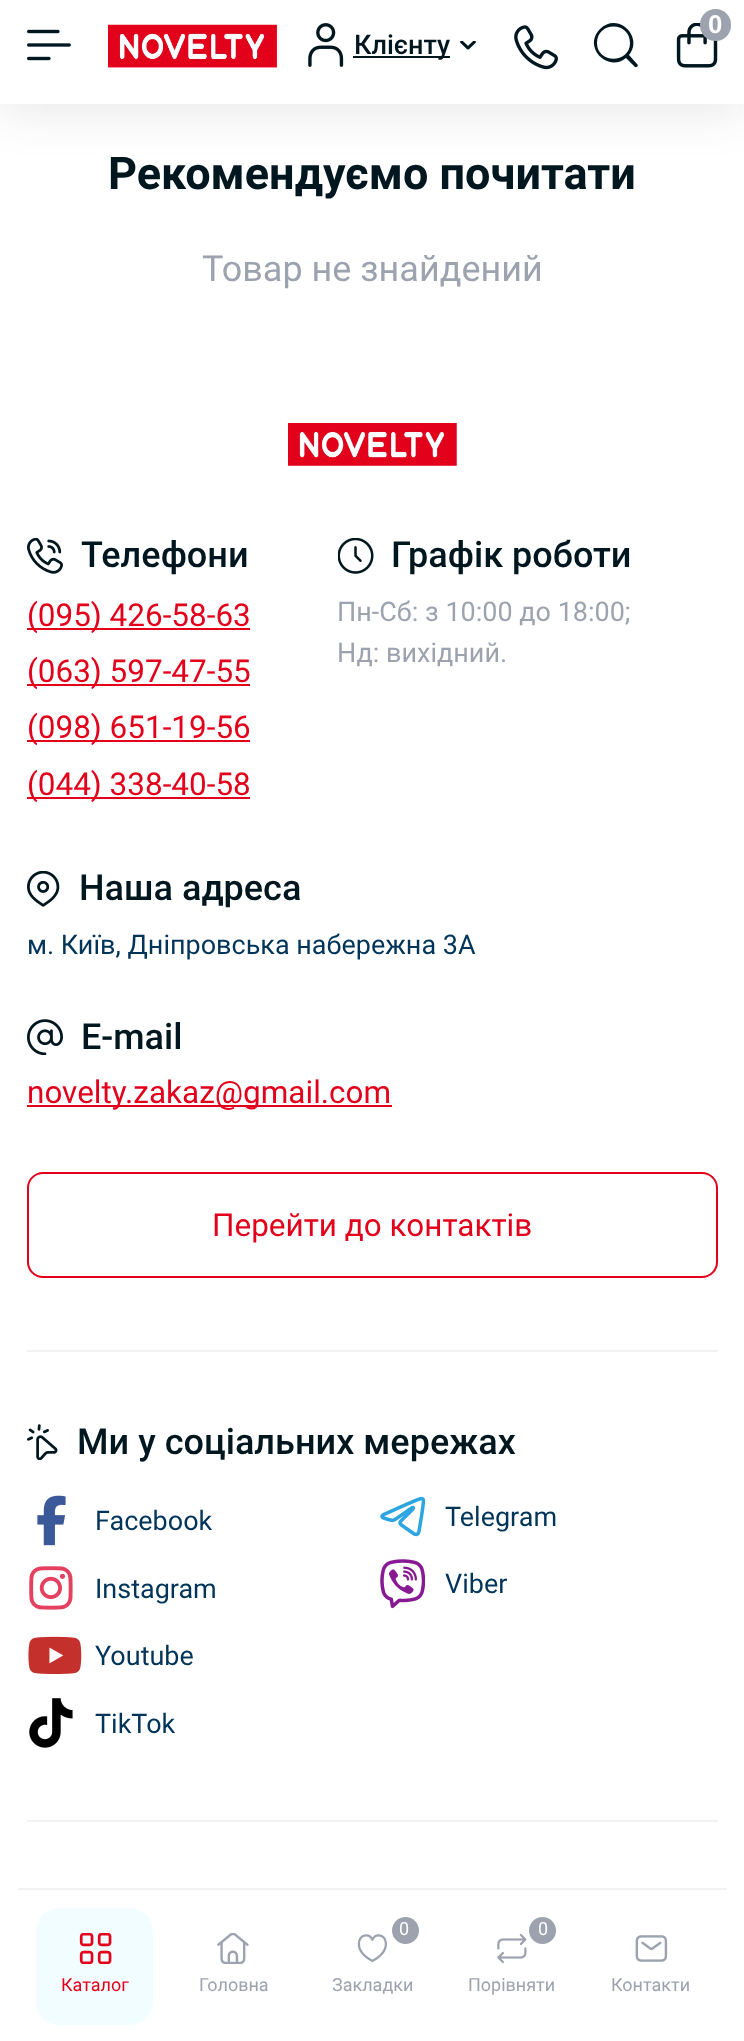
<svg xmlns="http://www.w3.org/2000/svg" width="744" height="2041">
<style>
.a{font:500 27px Roboto;fill:#00171f}
.b{font:bold 25px Roboto;fill:#fff}
.c{font:bold 45px Roboto;fill:#00171f}
.d{font:36px Roboto;fill:#9ca3af}
.e{font:500 36px Roboto;fill:#00171f}
.f{font:31.5px Roboto;fill:#e3001b}
.g{font:27px Roboto;fill:#9ca3af}
.h{font:27px Roboto;fill:#003459}
.i{font:18px Roboto;fill:#e3001b}
.j{font:18px Roboto;fill:#9ca3af}
.k{font:18px Roboto;fill:#fff}
</style>
<rect width="100%" height="100%" fill="#fff"/>
<path fill="#2526271a" filter="blur(22.5px)" d="M0 9h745v104H0z"/>
<path fill="#fff" d="M0 0h744v104H0z"/>
<image href="1.png" x="27" y="29" width="44" height="32"/>
<image href="2.png" x="108" y="24" width="169" height="44"/>
<image href="3.png" x="308" y="23" width="36" height="44"/>
<path fill="#00171f" d="M353 56h97v2H353z"/>
<image href="4.png" x="460" y="41" width="16" height="9"/>
<image href="5.png" x="514" y="25" width="44" height="45"/>
<path fill="#00171f" d="M637 64l-8-9c15-18-11-44-29-26c-18 18 8 44 26 29l9 9c2 1 4-2 2-3zm-40-21c0-22 33-22 33 0c0 21-33 21-33 0z"/>
<image href="6.png" x="676" y="23" width="42" height="45"/>
<rect fill="#9ca3af" x="700" y="9" width="31" height="32" rx="15.5"/>
<image href="7.png" x="288" y="423" width="169" height="43"/>
<image href="8.png" x="27" y="538" width="36" height="36"/>
<path fill="#e3001b" d="M27 628h223v2H27z"/>
<path fill="#e3001b" d="M27 684h223v2H27z"/>
<path fill="#e3001b" d="M27 740h223v2H27z"/>
<path fill="#e3001b" d="M27 797h223v2H27z"/>
<image href="9.png" x="338" y="538" width="36" height="36"/>
<image href="10.png" x="27" y="871" width="33" height="36"/>
<image href="11.png" x="27" y="1019" width="36" height="36"/>
<path fill="#e3001b" d="M27 1105h365v2H27z"/>
<rect fill="none" stroke="#e3001b" stroke-width="2" x="28" y="1173" width="689" height="104" rx="15"/>
<path fill="#f2f2f2" d="M27 1350h691v2H27z"/>
<image href="12.png" x="27" y="1424" width="31" height="36"/>
<image href="13.png" x="37" y="1495" width="29" height="51"/>
<image href="14.png" x="29" y="1566" width="44" height="44"/>
<image href="15.png" x="28" y="1636" width="54" height="38"/>
<image href="16.png" x="29" y="1698" width="44" height="50"/>
<image href="17.png" x="380" y="1496" width="45" height="41"/>
<image href="18.png" x="380" y="1559" width="45" height="50"/>
<path fill="#f2f2f2" d="M27 1820h691v2H27z"/>
<path fill="#f2f2f2" d="M18 1888h709v2H18z"/>
<rect fill="#f2fdff" x="36" y="1908" width="117" height="117" rx="23"/>
<image href="19.png" x="79" y="1933" width="33" height="31"/>
<image href="20.png" x="217" y="1933" width="32" height="31"/>
<circle fill="#9ca3af" cx="405.5" cy="1930.5" r="13.5"/>
<image href="21.png" x="357" y="1934" width="30" height="28"/>
<circle fill="#9ca3af" cx="542.5" cy="1930.5" r="13.5"/>
<image href="22.png" x="497" y="1933" width="30" height="31"/>
<image href="23.png" x="635" y="1935" width="33" height="27"/>
<text class="a" x="354" y="54">Клієнту</text>
<text class="b" x="708" y="33">0</text>
<text class="c" x="108" y="189">Рекомендуємо почитати</text>
<text class="d" x="202" y="281">Товар не знайдений</text>
<text class="e" x="81" y="567">Телефони</text>
<text class="f" x="27" y="626">(095) 426-58-63</text>
<text class="f" x="27" y="682">(063) 597-47-55</text>
<text class="f" x="27" y="738">(098) 651-19-56</text>
<text class="f" x="27" y="795">(044) 338-40-58</text>
<text class="e" x="391" y="567">Графік роботи</text>
<text class="g" x="337" y="621">Пн-Сб: з 10:00 до 18:00;</text>
<text class="g" x="337" y="662">Нд: вихідний.</text>
<text class="e" x="79" y="900">Наша адреса</text>
<text class="h" x="27" y="954">м. Київ, Дніпровська набережна 3А</text>
<text class="e" x="81" y="1049">E-mail</text>
<text class="f" x="27" y="1103">novelty.zakaz@gmail.com</text>
<text class="f" x="212" y="1236">Перейти до контактів</text>
<text class="e" x="77" y="1454">Ми у соціальних мережах</text>
<text class="h" x="95" y="1530">Facebook</text>
<text class="h" x="95" y="1598">Instagram</text>
<text class="h" x="95" y="1665">Youtube</text>
<text class="h" x="95" y="1733">TikTok</text>
<text class="h" x="445" y="1526">Telegram</text>
<text class="h" x="445" y="1593">Viber</text>
<text class="i" x="61" y="1991">Каталог</text>
<text class="j" x="199" y="1991">Головна</text>
<text class="k" x="399" y="1935">0</text>
<text class="j" x="332" y="1991">Закладки</text>
<text class="k" x="538" y="1935">0</text>
<text class="j" x="468" y="1991">Порівняти</text>
<text class="j" x="611" y="1991">Контакти</text>
</svg>
